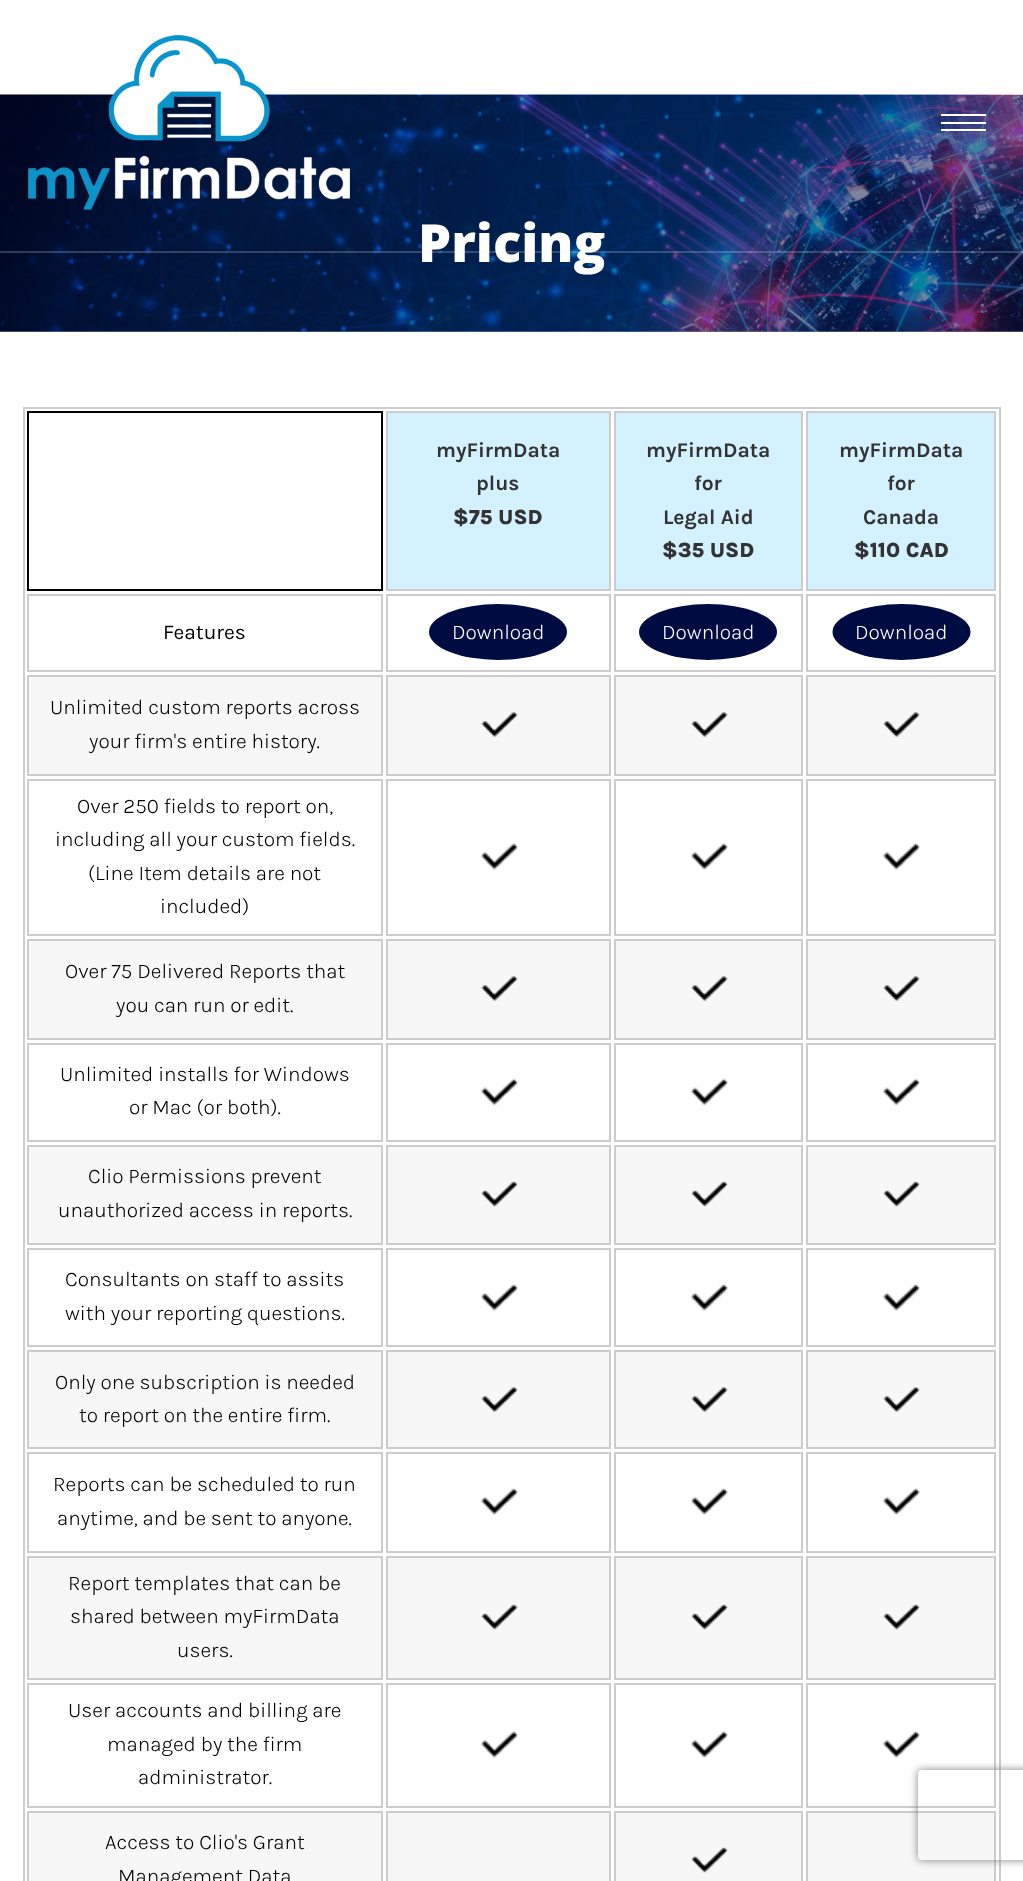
<svg xmlns="http://www.w3.org/2000/svg" width="1023" height="1881">
<style>
.a{font:800 52.5px Open Sans;fill:#fff}
.b{font:bold 21px Karla;fill:#333}
.c{font:800 21px Karla;fill:#333}
.d{font:21px Karla;fill:#000}
.e{font:300 21px Karla;fill:#fff}
.f{font:300 21px Karla;fill:#000}
</style>
<defs>
<clipPath id="clip1"><path d="M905 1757h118v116h-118zm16 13h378c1.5 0 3 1.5 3 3v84c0 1.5-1.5 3-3 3h-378c-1.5 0-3-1.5-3-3v-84c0-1.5 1.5-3 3-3z" clip-rule="evenodd"/></clipPath>
</defs>
<rect width="100%" height="100%" fill="#fff"/>
<path fill="#8085a0" d="M0 331h1023v1H0z"/>
<image href="2.png" x="0" y="94" width="1023" height="238"/>
<image href="1.png" x="28" y="34" width="322" height="176"/>
<path fill="#fff" d="M941 114h45v2H941z"/>
<path fill="#fff" d="M941 122h45v2H941z"/>
<path fill="#fff" d="M941 129h45v2H941z"/>
<path fill="none" stroke="#ccc" stroke-width="2" d="M24 408h976v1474H24z"/>
<path fill="none" stroke="#000" stroke-width="2" d="M28 412h354v178H28z"/>
<path fill="#d4f1ff" stroke="#ccc" stroke-width="2" d="M387 412h223v178H387z"/>
<path fill="#d4f1ff" stroke="#ccc" stroke-width="2" d="M615 412h187v178H615z"/>
<path fill="#d4f1ff" stroke="#ccc" stroke-width="2" d="M807 412h188v178H807z"/>
<path fill="none" stroke="#ccc" stroke-width="2" d="M28 595h354v76H28z"/>
<path fill="none" stroke="#ccc" stroke-width="2" d="M387 595h223v76H387z"/>
<ellipse fill="#000b41" cx="498" cy="632" rx="69" ry="28"/>
<path fill="none" stroke="#ccc" stroke-width="2" d="M615 595h187v76H615z"/>
<ellipse fill="#000b41" cx="708" cy="632" rx="69" ry="28"/>
<path fill="none" stroke="#ccc" stroke-width="2" d="M807 595h188v76H807z"/>
<ellipse fill="#000b41" cx="901.5" cy="632" rx="69" ry="28"/>
<path fill="#f7f7f7" stroke="#ccc" stroke-width="2" d="M28 676h354v99H28z"/>
<path fill="#f7f7f7" stroke="#ccc" stroke-width="2" d="M387 676h223v99H387z"/>
<image href="3.png" x="481" y="712" width="37" height="25"/>
<path fill="#f7f7f7" stroke="#ccc" stroke-width="2" d="M615 676h187v99H615z"/>
<image href="4.png" x="691" y="712" width="37" height="25"/>
<path fill="#f7f7f7" stroke="#ccc" stroke-width="2" d="M807 676h188v99H807z"/>
<image href="3.png" x="883" y="712" width="37" height="25"/>
<path fill="none" stroke="#ccc" stroke-width="2" d="M28 780h354v155H28z"/>
<path fill="none" stroke="#ccc" stroke-width="2" d="M387 780h223v155H387z"/>
<image href="5.png" x="480" y="843" width="38" height="28"/>
<path fill="none" stroke="#ccc" stroke-width="2" d="M615 780h187v155H615z"/>
<image href="6.png" x="690" y="843" width="38" height="28"/>
<path fill="none" stroke="#ccc" stroke-width="2" d="M807 780h188v155H807z"/>
<image href="5.png" x="882" y="843" width="38" height="28"/>
<path fill="#f7f7f7" stroke="#ccc" stroke-width="2" d="M28 940h354v99H28z"/>
<path fill="#f7f7f7" stroke="#ccc" stroke-width="2" d="M387 940h223v99H387z"/>
<image href="3.png" x="481" y="976" width="37" height="25"/>
<path fill="#f7f7f7" stroke="#ccc" stroke-width="2" d="M615 940h187v99H615z"/>
<image href="4.png" x="691" y="976" width="37" height="25"/>
<path fill="#f7f7f7" stroke="#ccc" stroke-width="2" d="M807 940h188v99H807z"/>
<image href="3.png" x="883" y="976" width="37" height="25"/>
<path fill="none" stroke="#ccc" stroke-width="2" d="M28 1044h354v97H28z"/>
<path fill="none" stroke="#ccc" stroke-width="2" d="M387 1044h223v97H387z"/>
<image href="7.png" x="480" y="1078" width="38" height="28"/>
<path fill="none" stroke="#ccc" stroke-width="2" d="M615 1044h187v97H615z"/>
<image href="8.png" x="690" y="1078" width="38" height="28"/>
<path fill="none" stroke="#ccc" stroke-width="2" d="M807 1044h188v97H807z"/>
<image href="7.png" x="882" y="1078" width="38" height="28"/>
<path fill="#f7f7f7" stroke="#ccc" stroke-width="2" d="M28 1146h354v98H28z"/>
<path fill="#f7f7f7" stroke="#ccc" stroke-width="2" d="M387 1146h223v98H387z"/>
<image href="9.png" x="481" y="1181" width="37" height="26"/>
<path fill="#f7f7f7" stroke="#ccc" stroke-width="2" d="M615 1146h187v98H615z"/>
<image href="10.png" x="691" y="1181" width="37" height="26"/>
<path fill="#f7f7f7" stroke="#ccc" stroke-width="2" d="M807 1146h188v98H807z"/>
<image href="9.png" x="883" y="1181" width="37" height="26"/>
<path fill="none" stroke="#ccc" stroke-width="2" d="M28 1249h354v97H28z"/>
<path fill="none" stroke="#ccc" stroke-width="2" d="M387 1249h223v97H387z"/>
<image href="5.png" x="480" y="1284" width="38" height="28"/>
<path fill="none" stroke="#ccc" stroke-width="2" d="M615 1249h187v97H615z"/>
<image href="6.png" x="690" y="1284" width="38" height="28"/>
<path fill="none" stroke="#ccc" stroke-width="2" d="M807 1249h188v97H807z"/>
<image href="5.png" x="882" y="1284" width="38" height="28"/>
<path fill="#f7f7f7" stroke="#ccc" stroke-width="2" d="M28 1351h354v97H28z"/>
<path fill="#f7f7f7" stroke="#ccc" stroke-width="2" d="M387 1351h223v97H387z"/>
<image href="3.png" x="481" y="1387" width="37" height="25"/>
<path fill="#f7f7f7" stroke="#ccc" stroke-width="2" d="M615 1351h187v97H615z"/>
<image href="4.png" x="691" y="1387" width="37" height="25"/>
<path fill="#f7f7f7" stroke="#ccc" stroke-width="2" d="M807 1351h188v97H807z"/>
<image href="3.png" x="883" y="1387" width="37" height="25"/>
<path fill="none" stroke="#ccc" stroke-width="2" d="M28 1453h354v99H28z"/>
<path fill="none" stroke="#ccc" stroke-width="2" d="M387 1453h223v99H387z"/>
<image href="5.png" x="480" y="1488" width="38" height="28"/>
<path fill="none" stroke="#ccc" stroke-width="2" d="M615 1453h187v99H615z"/>
<image href="6.png" x="690" y="1488" width="38" height="28"/>
<path fill="none" stroke="#ccc" stroke-width="2" d="M807 1453h188v99H807z"/>
<image href="5.png" x="882" y="1488" width="38" height="28"/>
<path fill="#f7f7f7" stroke="#ccc" stroke-width="2" d="M28 1557h354v122H28z"/>
<path fill="#f7f7f7" stroke="#ccc" stroke-width="2" d="M387 1557h223v122H387z"/>
<image href="9.png" x="481" y="1604" width="37" height="26"/>
<path fill="#f7f7f7" stroke="#ccc" stroke-width="2" d="M615 1557h187v122H615z"/>
<image href="10.png" x="691" y="1604" width="37" height="26"/>
<path fill="#f7f7f7" stroke="#ccc" stroke-width="2" d="M807 1557h188v122H807z"/>
<image href="9.png" x="883" y="1604" width="37" height="26"/>
<path fill="none" stroke="#ccc" stroke-width="2" d="M28 1684h354v123H28z"/>
<path fill="none" stroke="#ccc" stroke-width="2" d="M387 1684h223v123H387z"/>
<image href="5.png" x="480" y="1731" width="38" height="28"/>
<path fill="none" stroke="#ccc" stroke-width="2" d="M615 1684h187v123H615z"/>
<image href="6.png" x="690" y="1731" width="38" height="28"/>
<path fill="none" stroke="#ccc" stroke-width="2" d="M807 1684h188v123H807z"/>
<image href="5.png" x="882" y="1731" width="38" height="28"/>
<path fill="#f7f7f7" stroke="#ccc" stroke-width="2" d="M28 1812h354v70H28z"/>
<path fill="#f7f7f7" stroke="#ccc" stroke-width="2" d="M387 1812h223v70H387z"/>
<path fill="#f7f7f7" stroke="#ccc" stroke-width="2" d="M615 1812h187v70H615z"/>
<image href="10.png" x="691" y="1847" width="37" height="26"/>
<path fill="#f7f7f7" stroke="#ccc" stroke-width="2" d="M807 1812h188v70H807z"/>
<g clip-path="url(#clip1)">
<rect fill="#808080" filter="blur(4px)" x="918" y="1770" width="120" height="90" rx="3"/>
</g>
<text class="a" x="418" y="262">Pricing</text>
<path fill="#f0f0f036" d="M0 251h1023v2H0z"/>
<text class="b" x="436" y="457">myFirmData</text>
<text class="b" x="476" y="490">plus</text>
<text class="c" x="453" y="524">$75 USD</text>
<text class="b" x="646" y="457">myFirmData</text>
<text class="b" x="694" y="490">for</text>
<text class="b" x="663" y="524">Legal Aid</text>
<text class="c" x="662" y="557">$35 USD</text>
<text class="b" x="839" y="457">myFirmData</text>
<text class="b" x="887" y="490">for</text>
<text class="b" x="863" y="524">Canada</text>
<text class="c" x="854" y="557">$110 CAD</text>
<text class="d" x="163" y="639">Features</text>
<text class="e" x="452" y="639">Download</text>
<text class="e" x="662" y="639">Download</text>
<text class="e" x="855" y="639">Download</text>
<text class="f" x="50" y="714">Unlimited custom reports across</text>
<text class="f" x="89" y="748">your firm's entire history.</text>
<text class="f" x="77" y="813">Over 250 fields to report on,</text>
<text class="f" x="55" y="846">including all your custom fields.</text>
<text class="f" x="88" y="880">(Line Item details are not</text>
<text class="f" x="160" y="913">included)</text>
<text class="f" x="65" y="978">Over 75 Delivered Reports that</text>
<text class="f" x="116" y="1012">you can run or edit.</text>
<text class="f" x="60" y="1081">Unlimited installs for Windows</text>
<text class="f" x="129" y="1114">or Mac (or both).</text>
<text class="f" x="88" y="1183">Clio Permissions prevent</text>
<text class="f" x="58" y="1217">unauthorized access in reports.</text>
<text class="f" x="65" y="1286">Consultants on staff to assits</text>
<text class="f" x="65" y="1320">with your reporting questions.</text>
<text class="f" x="55" y="1389">Only one subscription is needed</text>
<text class="f" x="79" y="1422">to report on the entire firm.</text>
<text class="f" x="53" y="1491">Reports can be scheduled to run</text>
<text class="f" x="57" y="1525">anytime, and be sent to anyone.</text>
<text class="f" x="68" y="1590">Report templates that can be</text>
<text class="f" x="70" y="1623">shared between myFirmData</text>
<text class="f" x="177" y="1657">users.</text>
<text class="f" x="68" y="1717">User accounts and billing are</text>
<text class="f" x="107" y="1751">managed by the firm</text>
<text class="f" x="138" y="1784">administrator.</text>
<text class="f" x="105" y="1849">Access to Clio's Grant</text>
<text class="f" x="118" y="1883">Management Data</text>
</svg>
